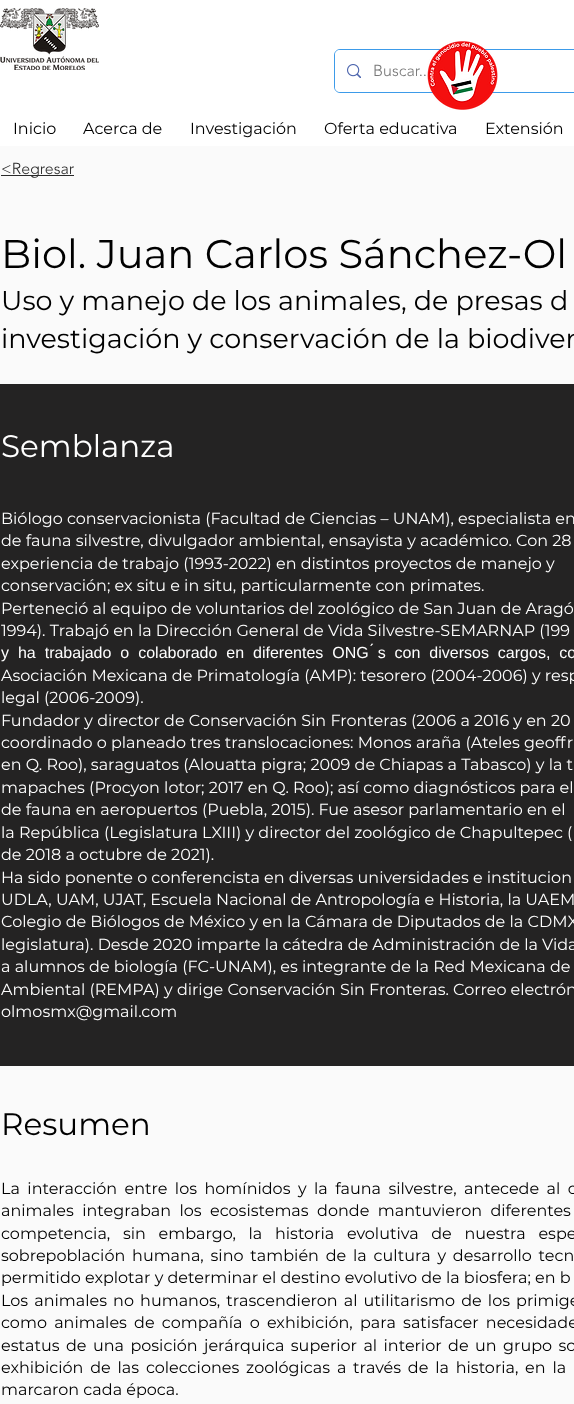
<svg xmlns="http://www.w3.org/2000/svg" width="574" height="1404">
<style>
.a{font:300 16px 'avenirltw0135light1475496';fill:#787878}
.b{font:16px Montserrat;fill:#000}
.c{font:300 16px 'avenirltw0135light1475496';fill:#292929}
.d{font:40px Montserrat;fill:#000}
.e{font:27px Montserrat;fill:#000}
.f{font:31px Montserrat;fill:#fff}
.g{font:16px Montserrat;fill:#fff}
.h{font:16px Liberation Sans;fill:#fff}
.i{font:31px Montserrat;fill:#000}
</style>
<rect width="100%" height="100%" fill="#fff"/>
<rect fill="none" stroke="#3d9be9" x="334.5" y="49.5" width="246" height="43" rx="5.5"/>
<rect fill="#fff" x="335" y="50" width="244" height="42" rx="5"/>
<image href="1.png" x="427" y="41" width="71" height="69"/>
<image href="2.png" x="0" y="8" width="99" height="62"/>
<image href="3.png" x="347" y="64" width="14" height="14"/>
<path fill="#fafafa" d="M0 146h574v238H0z"/>
<path fill="#292929" d="M1 175h73v1H1z"/>
<path fill="#242323" d="M0 384h574v682H0z"/>
<path fill="#fafafa" d="M0 1066h574v338H0z"/>
<text class="a" x="373" y="76">Buscar..</text>
<text class="b" x="13" y="134">Inicio</text>
<text class="b" x="83" y="134">Acerca de</text>
<text class="b" x="190" y="134">Investigación</text>
<text class="b" x="324" y="134">Oferta educativa</text>
<text class="b" x="485" y="134">Extensión</text>
<text class="c" x="1" y="174">&lt;Regresar</text>
<text class="d" x="1" y="268">Biol. Juan Carlos Sánchez-Ol</text>
<text class="e" x="1" y="310">Uso y manejo de los animales, de presas d</text>
<text class="e" x="1" y="348">investigación y conservación de la biodiver</text>
<text class="f" x="1" y="457">Semblanza</text>
<text class="g" x="1" y="524">Biólogo conservacionista (Facultad de Ciencias – UNAM), especialista en</text>
<text class="g" x="1" y="546">de fauna silvestre, divulgador ambiental, ensayista y académico. Con 28</text>
<text class="g" x="1" y="569">experiencia de trabajo (1993-2022) en distintos proyectos de manejo y</text>
<text class="g" x="1" y="591">conservación; ex situ e in situ, particularmente con primates.</text>
<text class="g" x="1" y="614">Perteneció al equipo de voluntarios del zoológico de San Juan de Aragó</text>
<text class="g" x="1" y="636">1994). Trabajó en la Dirección General de Vida Silvestre-SEMARNAP (199</text>
<text class="h" x="1" y="658" word-spacing="4.5">y ha trabajado o colaborado en diferentes ONG ́s con diversos cargos, co</text>
<text class="g" x="1" y="681">Asociación Mexicana de Primatología (AMP): tesorero (2004-2006) y resp</text>
<text class="g" x="1" y="703">legal (2006-2009).</text>
<text class="g" x="1" y="726">Fundador y director de Conservación Sin Fronteras (2006 a 2016 y en 20</text>
<text class="g" x="1" y="748">coordinado o planeado tres translocaciones: Monos araña (Ateles geoffr</text>
<text class="g" x="1" y="770">en Q. Roo), saraguatos (Alouatta pigra; 2009 de Chiapas a Tabasco) y la t</text>
<text class="g" x="1" y="793">mapaches (Procyon lotor; 2017 en Q. Roo); así como diagnósticos para el</text>
<text class="g" x="1" y="815">de fauna en aeropuertos (Puebla, 2015). Fue asesor parlamentario en el</text>
<text class="g" x="1" y="838">la República (Legislatura LXIII) y director del zoológico de Chapultepec (</text>
<text class="g" x="1" y="860">de 2018 a octubre de 2021).</text>
<text class="g" x="1" y="883">Ha sido ponente o conferencista en diversas universidades e institucion</text>
<text class="g" x="1" y="905">UDLA, UAM, UJAT, Escuela Nacional de Antropología e Historia, la UAEM</text>
<text class="g" x="1" y="927">Colegio de Biólogos de México y en la Cámara de Diputados de la CDMX</text>
<text class="g" x="1" y="950">legislatura). Desde 2020 imparte la cátedra de Administración de la Vida</text>
<text class="g" x="1" y="972">a alumnos de biología (FC-UNAM), es integrante de la Red Mexicana de</text>
<text class="g" x="1" y="995">Ambiental (REMPA) y dirige Conservación Sin Fronteras. Correo electrón</text>
<text class="g" x="1" y="1017">olmosmx@gmail.com</text>
<text class="i" x="1" y="1135">Resumen</text>
<text class="b" x="1" y="1194" word-spacing="3.25">La interacción entre los homínidos y la fauna silvestre, antecede al o</text>
<text class="b" x="1" y="1216" word-spacing="4.25">animales integraban los ecosistemas donde mantuvieron diferentes</text>
<text class="b" x="1" y="1239" word-spacing="8.5">competencia, sin embargo, la historia evolutiva de nuestra espe</text>
<text class="b" x="1" y="1261" word-spacing="2.6">sobrepoblación humana, sino también de la cultura y desarrollo tecn</text>
<text class="b" x="1" y="1283">permitido explotar y determinar el destino evolutivo de la biosfera; en b</text>
<text class="b" x="1" y="1306" word-spacing="1.9">Los animales no humanos, trascendieron al utilitarismo de los primige</text>
<text class="b" x="1" y="1328" word-spacing="3">como animales de compañía o exhibición, para satisfacer necesidade</text>
<text class="b" x="1" y="1351" word-spacing="2.25">estatus de una posición jerárquica superior al interior de un grupo so</text>
<text class="b" x="1" y="1373" word-spacing="2.6">exhibición de las colecciones zoológicas a través de la historia, en la</text>
<text class="b" x="1" y="1395">marcaron cada época.</text>
</svg>
